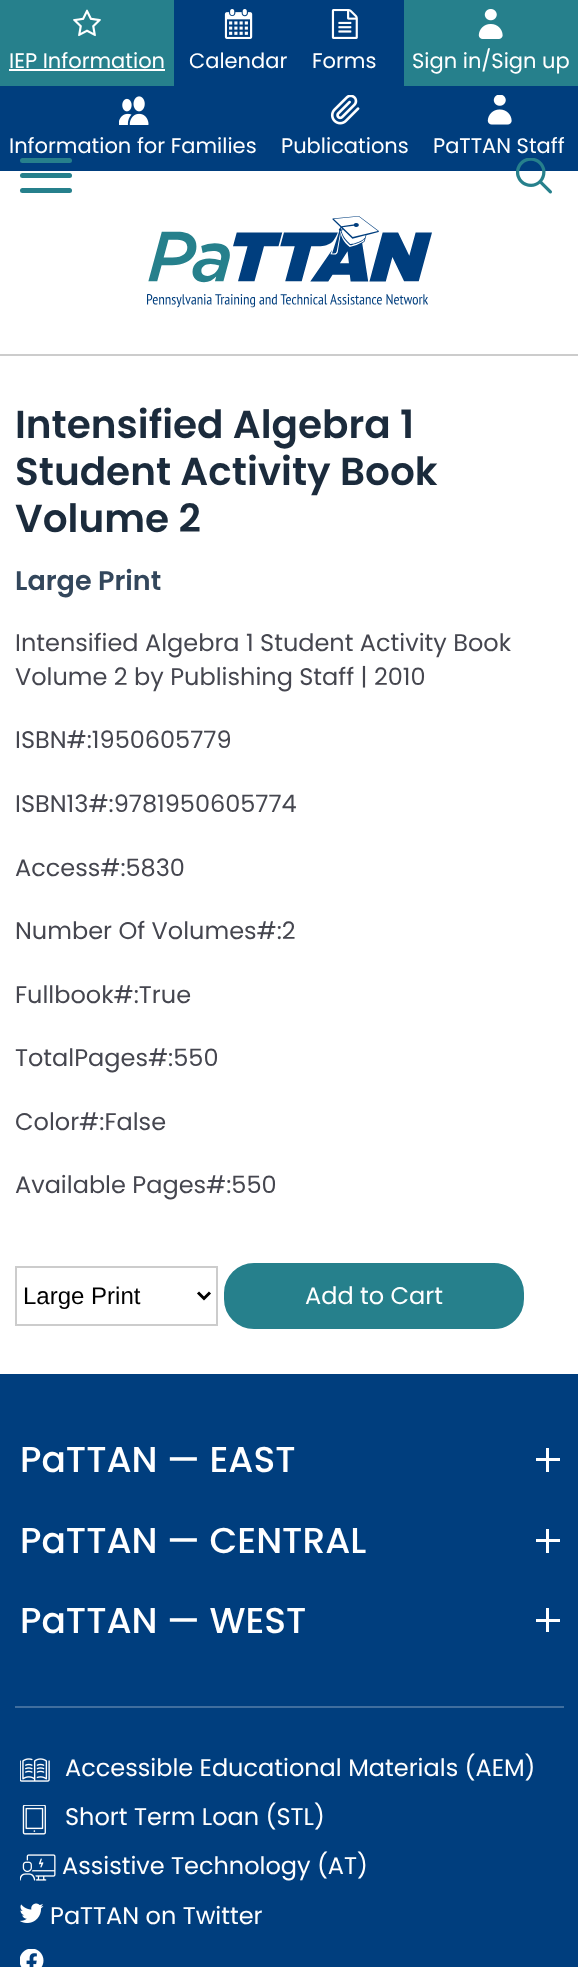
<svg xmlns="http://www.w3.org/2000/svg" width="578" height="1967">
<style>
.a{font:21px Poppins;fill:#fff}
.b{font:600 39px Poppins;fill:#1b2b3c}
.c{font:600 27px Poppins;fill:#33475c}
.d{font:24px Poppins;fill:#45464f}
.e{font:24px Liberation Sans;fill:#000}
.f{font:24px Poppins;fill:#fff}
.g{font:500 36px Poppins;fill:#fff}
</style>
<rect width="100%" height="100%" fill="#fff"/>
<path fill="#ccc" d="M0 354h578v2H0z"/>
<path fill="#003e7e" d="M0 0h578v171H0z"/>
<path fill="#26808c" d="M404 0h174v86H404z"/>
<image href="1.png" x="478" y="9" width="25" height="30"/>
<path fill="#26808c" d="M0 0h174v86H0z"/>
<image href="2.png" x="73" y="9" width="28" height="28"/>
<path fill="#fff" d="M9 69h156v2H9z"/>
<image href="3.png" x="224" y="9" width="29" height="30"/>
<image href="4.png" x="331" y="9" width="27" height="30"/>
<image href="5.png" x="119" y="96" width="30" height="29"/>
<image href="6.png" x="330" y="95" width="30" height="30"/>
<image href="7.png" x="487" y="95" width="25" height="30"/>
<rect fill="#26808c" x="20" y="158" width="52" height="5" rx="2.5"/>
<rect fill="#26808c" x="20" y="173" width="52" height="5" rx="2.5"/>
<rect fill="#26808c" x="20" y="188" width="52" height="5" rx="2.5"/>
<image href="8.png" x="516" y="158" width="36" height="36"/>
<image href="9.png" x="147" y="216" width="285" height="92"/>
<path fill="none" stroke="#ccc" stroke-width="2" d="M16 1267h201v58H16z"/>
<path fill="none" stroke="#000" stroke-width="3" d="M198 1292.5l6 6l6-6"/>
<rect fill="#26808c" stroke="#26808c" stroke-width="2" x="225" y="1264" width="298" height="64" rx="29"/>
<path fill="#003e7e" d="M0 1374h578v593H0z"/>
<path fill="#406e9e" d="M15 1706h549v2H15z"/>
<path fill="#fff" d="M536 1458h24v3H536z"/>
<path fill="#fff" d="M546 1448h3v24H546z"/>
<path fill="#fff" d="M536 1539h24v3H536z"/>
<path fill="#fff" d="M546 1529h3v24H546z"/>
<path fill="#fff" d="M536 1619h24v3H536z"/>
<path fill="#fff" d="M546 1608h3v24H546z"/>
<image href="10.png" x="20" y="1758" width="30" height="24"/>
<image href="11.png" x="22" y="1805" width="24" height="30"/>
<image href="12.png" x="20" y="1854" width="36" height="27"/>
<image href="13.png" x="20" y="1903" width="24" height="20"/>
<image href="14.png" x="20" y="1949" width="24" height="18"/>
<text class="a" x="412" y="68">Sign in/Sign up</text>
<text class="a" x="9" y="68">IEP Information</text>
<text class="a" x="189" y="68">Calendar</text>
<text class="a" x="312" y="68">Forms</text>
<text class="a" x="9" y="153">Information for Families</text>
<text class="a" x="281" y="153">Publications</text>
<text class="a" x="433" y="153">PaTTAN Staff</text>
<text class="b" x="15" y="438">Intensified Algebra 1</text>
<text class="b" x="15" y="485">Student Activity Book</text>
<text class="b" x="15" y="532">Volume 2</text>
<text class="c" x="15" y="590">Large Print</text>
<text class="d" x="15" y="651">Intensified Algebra 1 Student Activity Book</text>
<text class="d" x="15" y="685">Volume 2 by Publishing Staff | 2010</text>
<text class="d" x="15" y="748">ISBN#:1950605779</text>
<text class="d" x="15" y="812">ISBN13#:9781950605774</text>
<text class="d" x="15" y="876">Access#:5830</text>
<text class="d" x="15" y="939">Number Of Volumes#:2</text>
<text class="d" x="15" y="1003">Fullbook#:True</text>
<text class="d" x="15" y="1066">TotalPages#:550</text>
<text class="d" x="15" y="1130">Color#:False</text>
<text class="d" x="15" y="1193">Available Pages#:550</text>
<text class="e" x="23" y="1304">Large Print</text>
<text class="f" x="305" y="1304">Add to Cart</text>
<text class="g" x="20" y="1472">PaTTAN — EAST</text>
<text class="g" x="20" y="1553">PaTTAN — CENTRAL</text>
<text class="g" x="20" y="1633">PaTTAN — WEST</text>
<text class="f" x="65" y="1776">Accessible Educational Materials (AEM)</text>
<text class="f" x="65" y="1825">Short Term Loan (STL)</text>
<text class="f" x="62" y="1874">Assistive Technology (AT)</text>
<text class="f" x="50" y="1924">PaTTAN on Twitter</text>
</svg>
